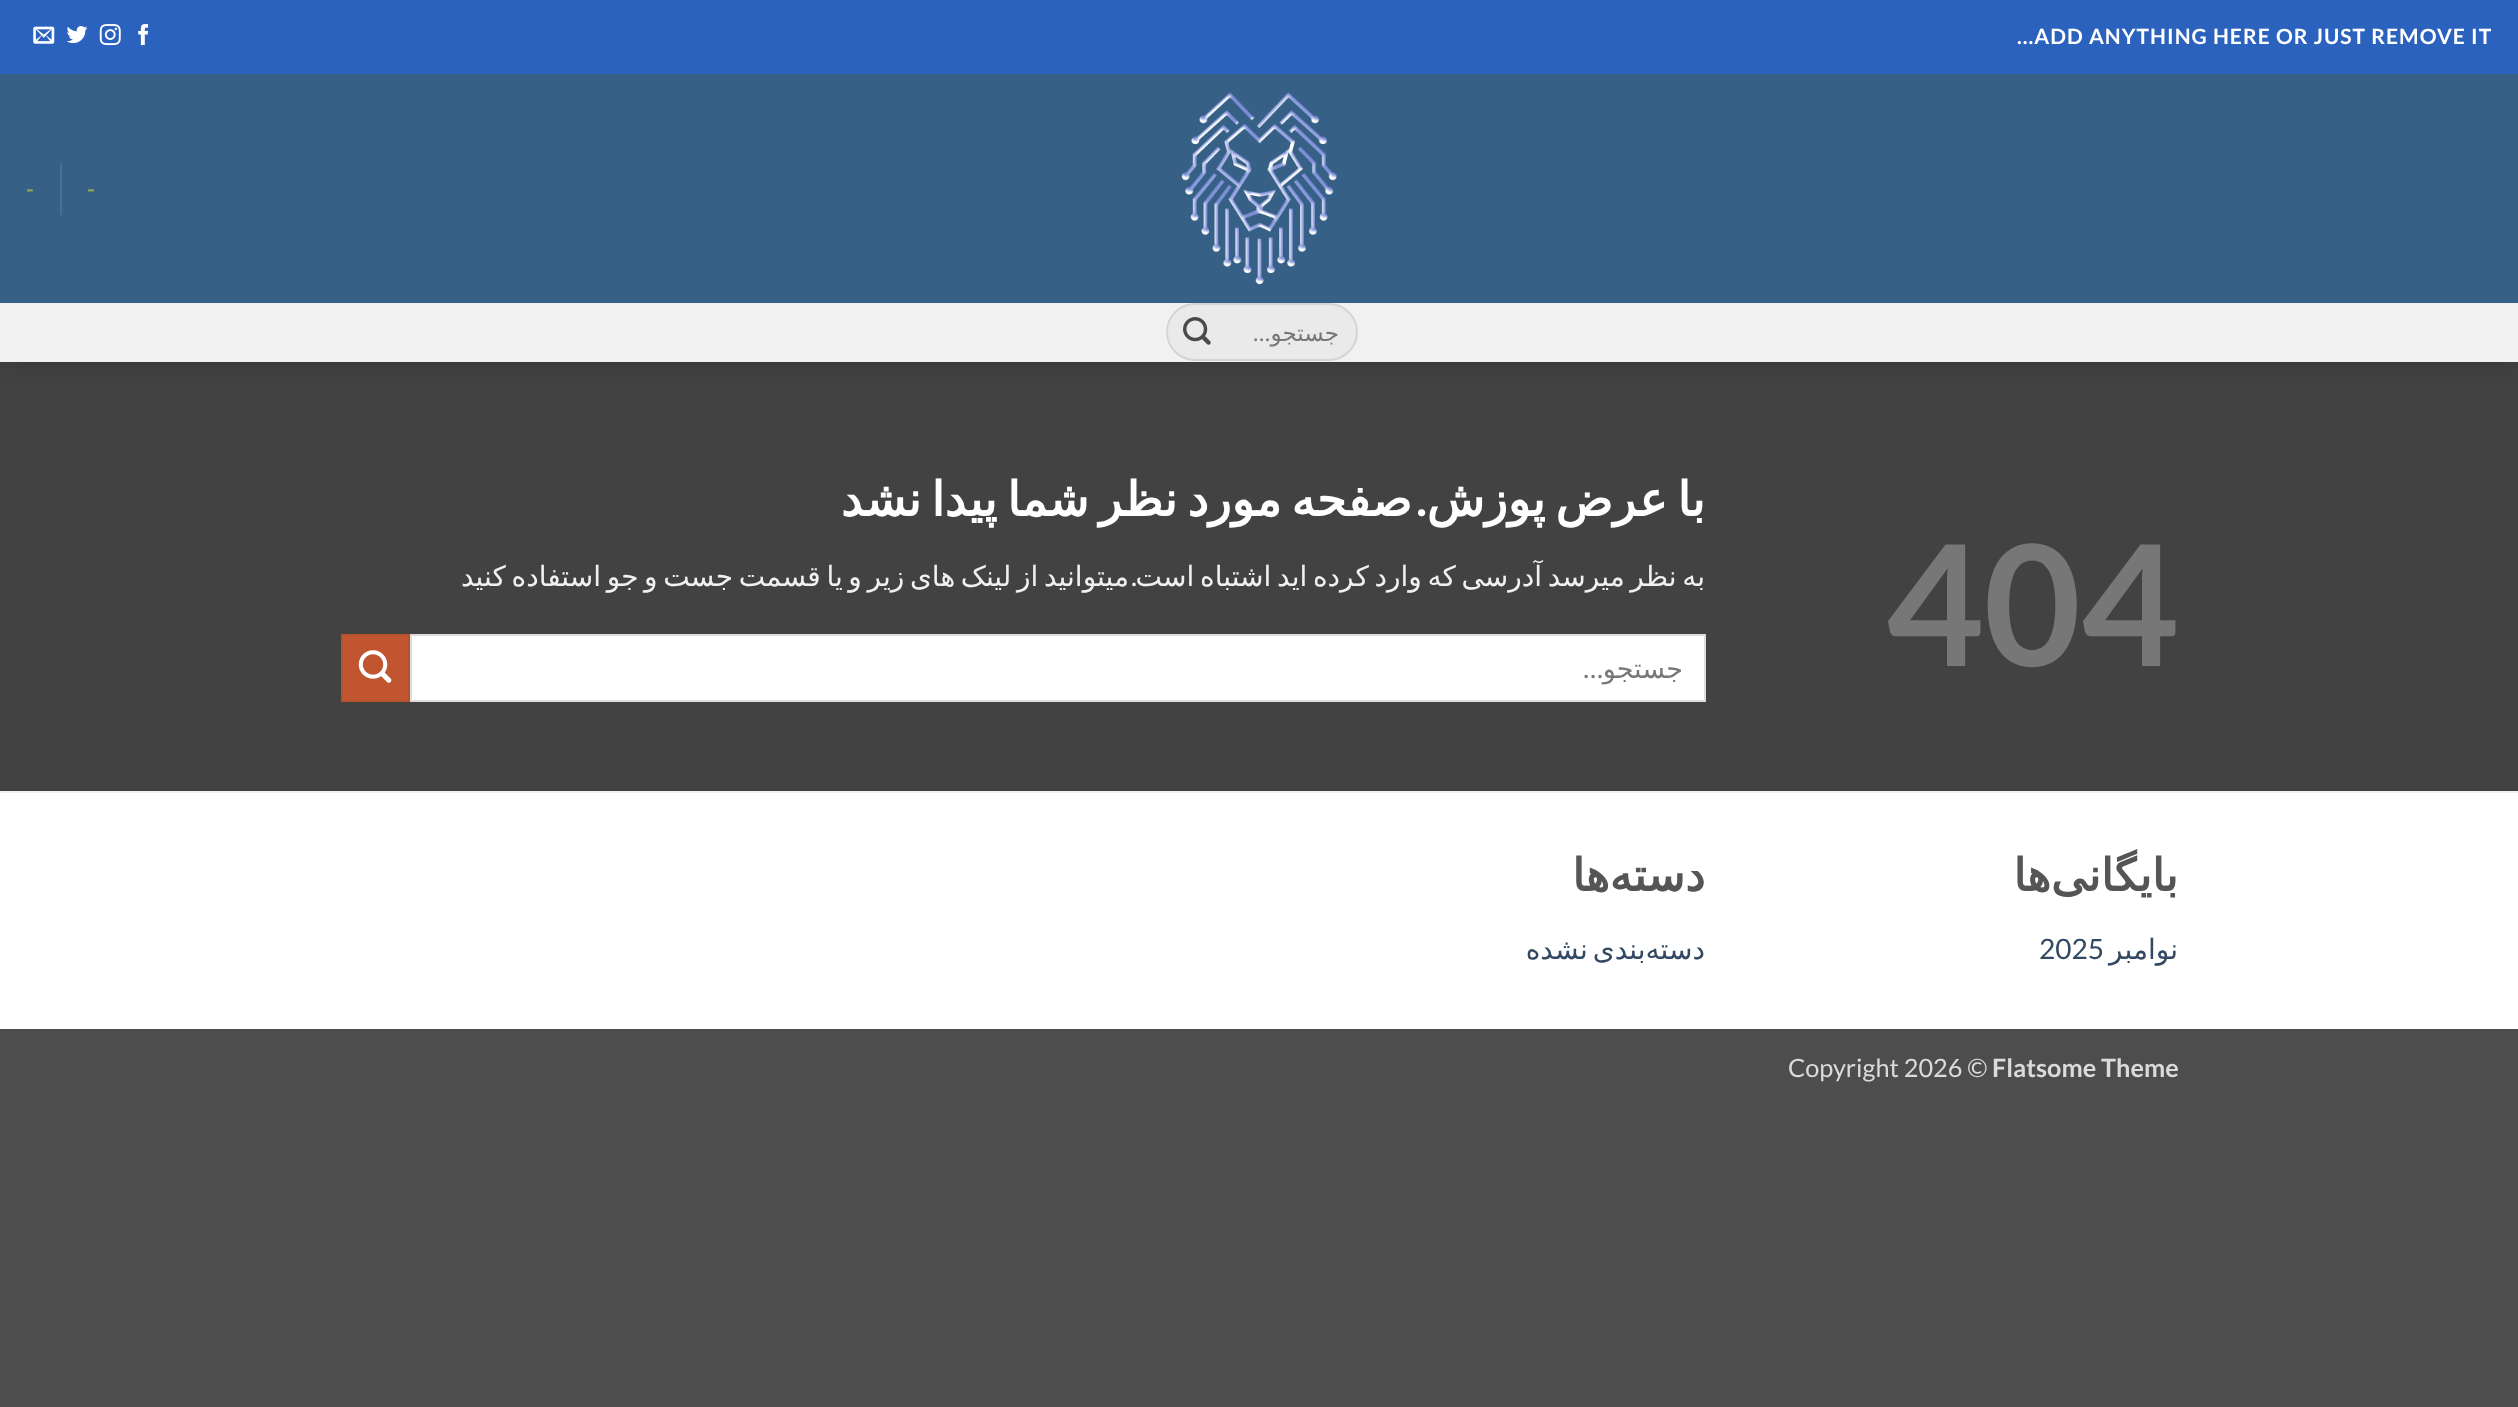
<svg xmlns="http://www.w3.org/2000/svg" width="2518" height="1407">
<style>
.a{font:bold 21px Lato;letter-spacing:1.05px;fill:#fff}
.b{font:bold 22px Lato;fill:#91a353}
.c{font:23px Lato;direction:rtl;fill:#777}
.d{font:23px DejaVu Sans;direction:rtl;fill:#777}
.e{font:bold 168px Lato;fill:#777}
.f{font:bold 47.6px DejaVu Sans;direction:rtl;fill:#fff}
.g{font:bold 47.6px Lato;direction:rtl;fill:#fff}
.h{font:28px DejaVu Sans;direction:rtl;fill:#f1f1f1}
.i{font:28px Lato;direction:rtl;fill:#f1f1f1}
.j{font:27px Lato;direction:rtl;fill:#777}
.k{font:27px DejaVu Sans;direction:rtl;fill:#777}
.l{font:bold 45px DejaVu Sans;direction:rtl;fill:#555}
.m{font:28px DejaVu Sans;direction:rtl;fill:#334862}
.n{font:28px Lato;fill:#334862}
.o{font:bold 25.25px Lato;fill:#dbdbdb}
.p{font:25.25px Lato;fill:#dbdbdb}
</style>
<rect width="100%" height="100%" fill="#4d4d4d"/>
<path fill="#424242" d="M0 362h2518v429H0z"/>
<path fill="#00000026" filter="blur(9px)" d="M2 2h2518v362H2z"/>
<path fill="#2b62be" d="M0 0h2518v74H0z"/>
<image href="1.png" x="138" y="24" width="11" height="22"/>
<image href="2.png" x="99" y="24" width="22" height="22"/>
<image href="3.png" x="66" y="26" width="22" height="18"/>
<image href="4.png" x="33" y="26" width="22" height="18"/>
<path fill="#366085" d="M0 74h2518v229H0z"/>
<image href="5.png" x="1181" y="92" width="156" height="193"/>
<path fill="#4a7091" d="M60 163h2v52H60z"/>
<path fill="#f1f1f1" d="M0 303h2518v59H0z"/>
<rect fill="#eaeaea" x="1166" y="303" width="192" height="58" rx="29"/>
<rect fill="none" stroke="#00000017" stroke-width="2" x="1167" y="304" width="190" height="56" rx="28"/>
<image href="6.png" x="1183" y="317" width="28" height="28"/>
<path fill="#fff" stroke="#ddd" stroke-width="2" d="M411 635h1294v66H411z"/>
<path fill="#c05530" stroke="#b6512e" stroke-width="2" d="M342 635h67v66H342z"/>
<image href="7.png" x="358" y="650" width="34" height="33"/>
<path fill="#fff" d="M0 793h2518v236H0z"/>
<path fill="#f2f2f2" d="M0 791h2518v2H0z"/>
<text class="a" x="2017" y="44">...ADD ANYTHING HERE OR JUST REMOVE IT</text>
<text class="b" x="87" y="197">-</text>
<text class="b" x="26" y="197">-</text>
<text class="c" x="1270" y="341">…</text>
<text class="d" x="1339" y="341">جستجو</text>
<text class="e" x="1886" y="666">404</text>
<text class="f" x="1705" y="516" word-spacing="-5.25">با عرض پوزش</text>
<text class="g" x="1427" y="516">.</text>
<text class="f" x="1412" y="516" word-spacing="-5.25">صفحه مورد نظر شما پیدا نشد</text>
<text class="h" x="1705" y="586" word-spacing="-3.25">به نظر میرسد آدرسی که وارد کرده اید اشتباه است</text>
<text class="i" x="1137" y="586">.</text>
<text class="h" x="1129" y="586" word-spacing="-3.25">میتوانید از لینک های زیر و یا قسمت جست و جو استفاده کنید</text>
<text class="j" x="1603" y="678">…</text>
<text class="k" x="1683" y="678">جستجو</text>
<text class="l" x="2178" y="891">بایگانی‌ها</text>
<text class="m" x="2178" y="959">نوامبر</text>
<text class="n" x="2039" y="959">2025</text>
<text class="l" x="1705" y="891">دسته‌ها</text>
<text class="m" x="1705" y="959" word-spacing="-4">دسته‌بندی نشده</text>
<text class="o" x="1992" y="1077">Flatsome Theme</text>
<text class="p" x="1788" y="1077">Copyright 2026 ©</text>
</svg>
